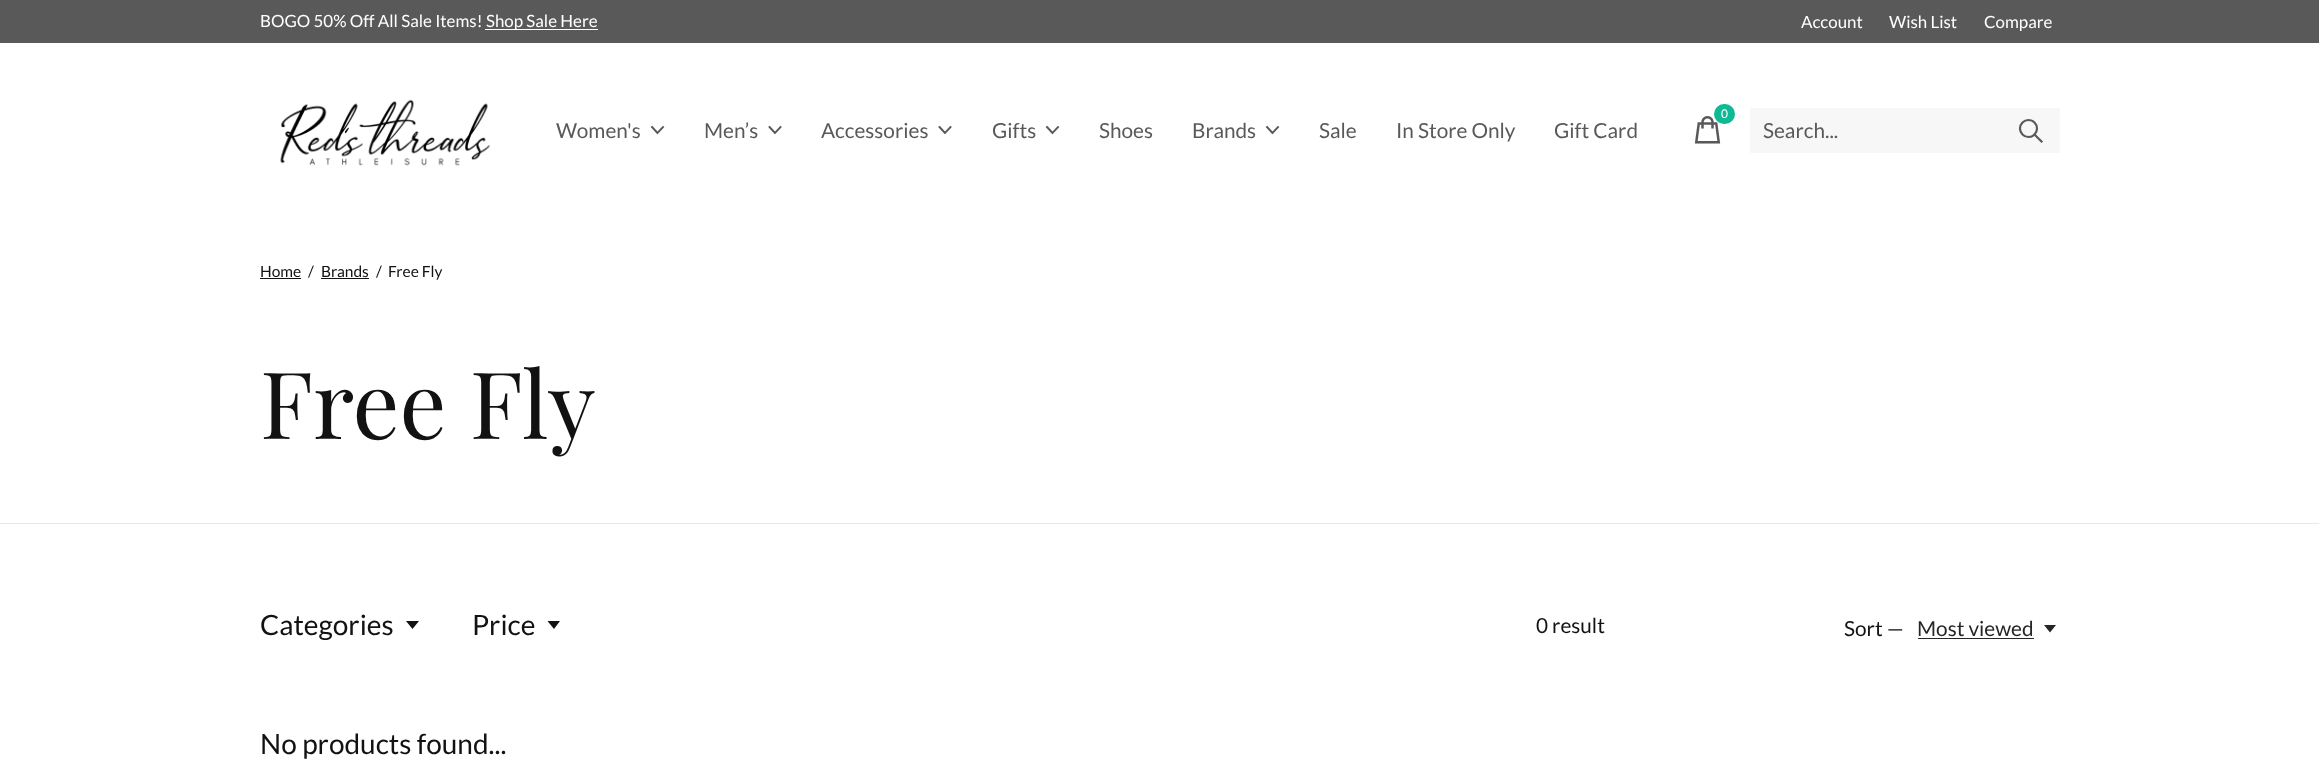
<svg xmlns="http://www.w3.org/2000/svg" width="2319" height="760">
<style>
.a{font:16.9px Lato;fill:#fff}
.b{font:20.75px Lato;fill:#595959}
.c{font:12px Lato;fill:#fff}
.d{font:15.5px Lato;fill:#121212}
.e{font:93px Playfair Display;fill:#121212}
.f{font:28px Lato;fill:#121212}
.g{font:20.75px Lato;fill:#121212}
.h{font:20.75px Lato;fill:#262626}
</style>
<rect width="100%" height="100%" fill="#fff"/>
<path fill="#595959" d="M0 0h2319v43H0z"/>
<path fill="#fff" d="M485 29h113v1H485z"/>
<image href="1.png" x="280" y="99" width="210" height="67"/>
<path fill="none" stroke="#595959" stroke-width="1.9" stroke-linecap="square" d="M652 127l5.5 6m5.5-6l-5.5 6"/>
<path fill="none" stroke="#595959" stroke-width="1.9" stroke-linecap="square" d="M769.5 127l5.5 6m5.5-6l-5.5 6"/>
<path fill="none" stroke="#595959" stroke-width="1.9" stroke-linecap="square" d="M939.5 127l5.5 6m5.5-6l-5.5 6"/>
<path fill="none" stroke="#595959" stroke-width="1.9" stroke-linecap="square" d="M1047 127l5.5 6m5.5-6l-5.5 6"/>
<path fill="none" stroke="#595959" stroke-width="1.9" stroke-linecap="square" d="M1267 127l5.5 6m5.5-6l-5.5 6"/>
<image href="2.png" x="1694" y="116" width="27" height="28"/>
<rect fill="#0eb994" x="1714" y="104" width="21" height="20" rx="10"/>
<path fill="#f7f7f7" d="M1750 108h310v45H1750z"/>
<path fill="none" stroke="#595959" stroke-width="2.2" stroke-linecap="square" d="M2041.5 141.5l-7-7"/>
<circle fill="none" stroke="#595959" stroke-width="2.2" cx="2028.5" cy="128.5" r="8.5"/>
<path fill="#e9e9e9" d="M0 523h2319v1H0z"/>
<path fill="#121212" d="M260 278h41v1H260z"/>
<path fill="#121212" d="M321 278h48v1H321z"/>
<path fill="#121212" d="M406 621l6.5 8l6.5-8z"/>
<path fill="#121212" d="M547.5 621l6.5 8l6-8z"/>
<path fill="#262626" d="M1918 638h116v1H1918z"/>
<path fill="#262626" d="M2044 625l6 7.5l6-7.5z"/>
<text class="a" x="260" y="27">BOGO 50% Off All Sale Items!</text>
<text class="a" x="486" y="27">Shop Sale Here</text>
<text class="a" x="1801" y="28">Account</text>
<text class="a" x="1889" y="28">Wish List</text>
<text class="a" x="1984" y="28">Compare</text>
<text class="b" x="556" y="138">Women's</text>
<text class="b" x="704" y="138">Men’s</text>
<text class="b" x="821" y="138">Accessories</text>
<text class="b" x="992" y="138">Gifts</text>
<text class="b" x="1099" y="138">Shoes</text>
<text class="b" x="1192" y="138">Brands</text>
<text class="b" x="1319" y="138">Sale</text>
<text class="b" x="1396" y="138">In Store Only</text>
<text class="b" x="1554" y="138">Gift Card</text>
<text class="c" x="1721" y="118">0</text>
<text class="b" x="1763" y="138">Search...</text>
<text class="d" x="260" y="277">Home</text>
<text class="d" x="308" y="277">/</text>
<text class="d" x="321" y="277">Brands</text>
<text class="d" x="376" y="277">/</text>
<text class="d" x="388" y="277">Free Fly</text>
<text class="e" x="260" y="439">Free Fly</text>
<text class="f" x="260" y="635">Categories</text>
<text class="f" x="472" y="635">Price</text>
<text class="g" x="1536" y="633">0 result</text>
<text class="g" x="1844" y="636">Sort —</text>
<text class="h" x="1917" y="636">Most viewed</text>
<text class="f" x="260" y="754">No products found...</text>
</svg>
